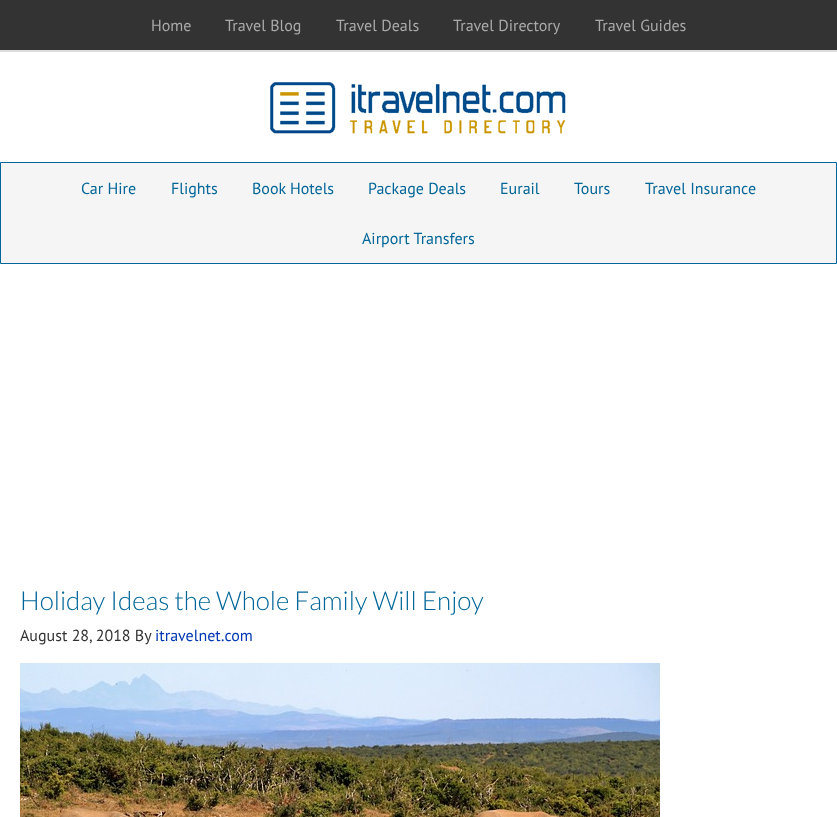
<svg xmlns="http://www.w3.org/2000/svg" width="837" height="817">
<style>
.a{font:16px PT Sans;fill:#aaa}
.b{font:16px PT Sans;fill:#069}
.c{font:300 26px Lato;fill:#069}
.d{font:16px PT Sans;fill:#333}
.e{font:16px PT Sans;fill:#0037b4}
</style>
<rect width="100%" height="100%" fill="#fff"/>
<path fill="#333" d="M0 0h837v50H0z"/>
<path fill="#ddd" d="M0 50h837v2H0z"/>
<image href="1.png" x="270" y="82" width="296" height="52"/>
<path fill="#f5f5f5" stroke="#069" d="M0.5 162.5h836v101H0.5z"/>
<image href="2.png" x="20" y="663" width="640" height="154"/>
<text class="a" x="151" y="31">Home</text>
<text class="a" x="225" y="31">Travel Blog</text>
<text class="a" x="336" y="31">Travel Deals</text>
<text class="a" x="453" y="31">Travel Directory</text>
<text class="a" x="595" y="31">Travel Guides</text>
<text class="b" x="81" y="194">Car Hire</text>
<text class="b" x="171" y="194">Flights</text>
<text class="b" x="252" y="194">Book Hotels</text>
<text class="b" x="368" y="194">Package Deals</text>
<text class="b" x="500" y="194">Eurail</text>
<text class="b" x="574" y="194">Tours</text>
<text class="b" x="645" y="194">Travel Insurance</text>
<text class="b" x="362" y="244">Airport Transfers</text>
<text class="c" x="20" y="610">Holiday Ideas the Whole Family Will Enjoy</text>
<text class="d" x="20" y="641">August 28, 2018 By</text>
<text class="e" x="155" y="641">itravelnet.com</text>
</svg>
